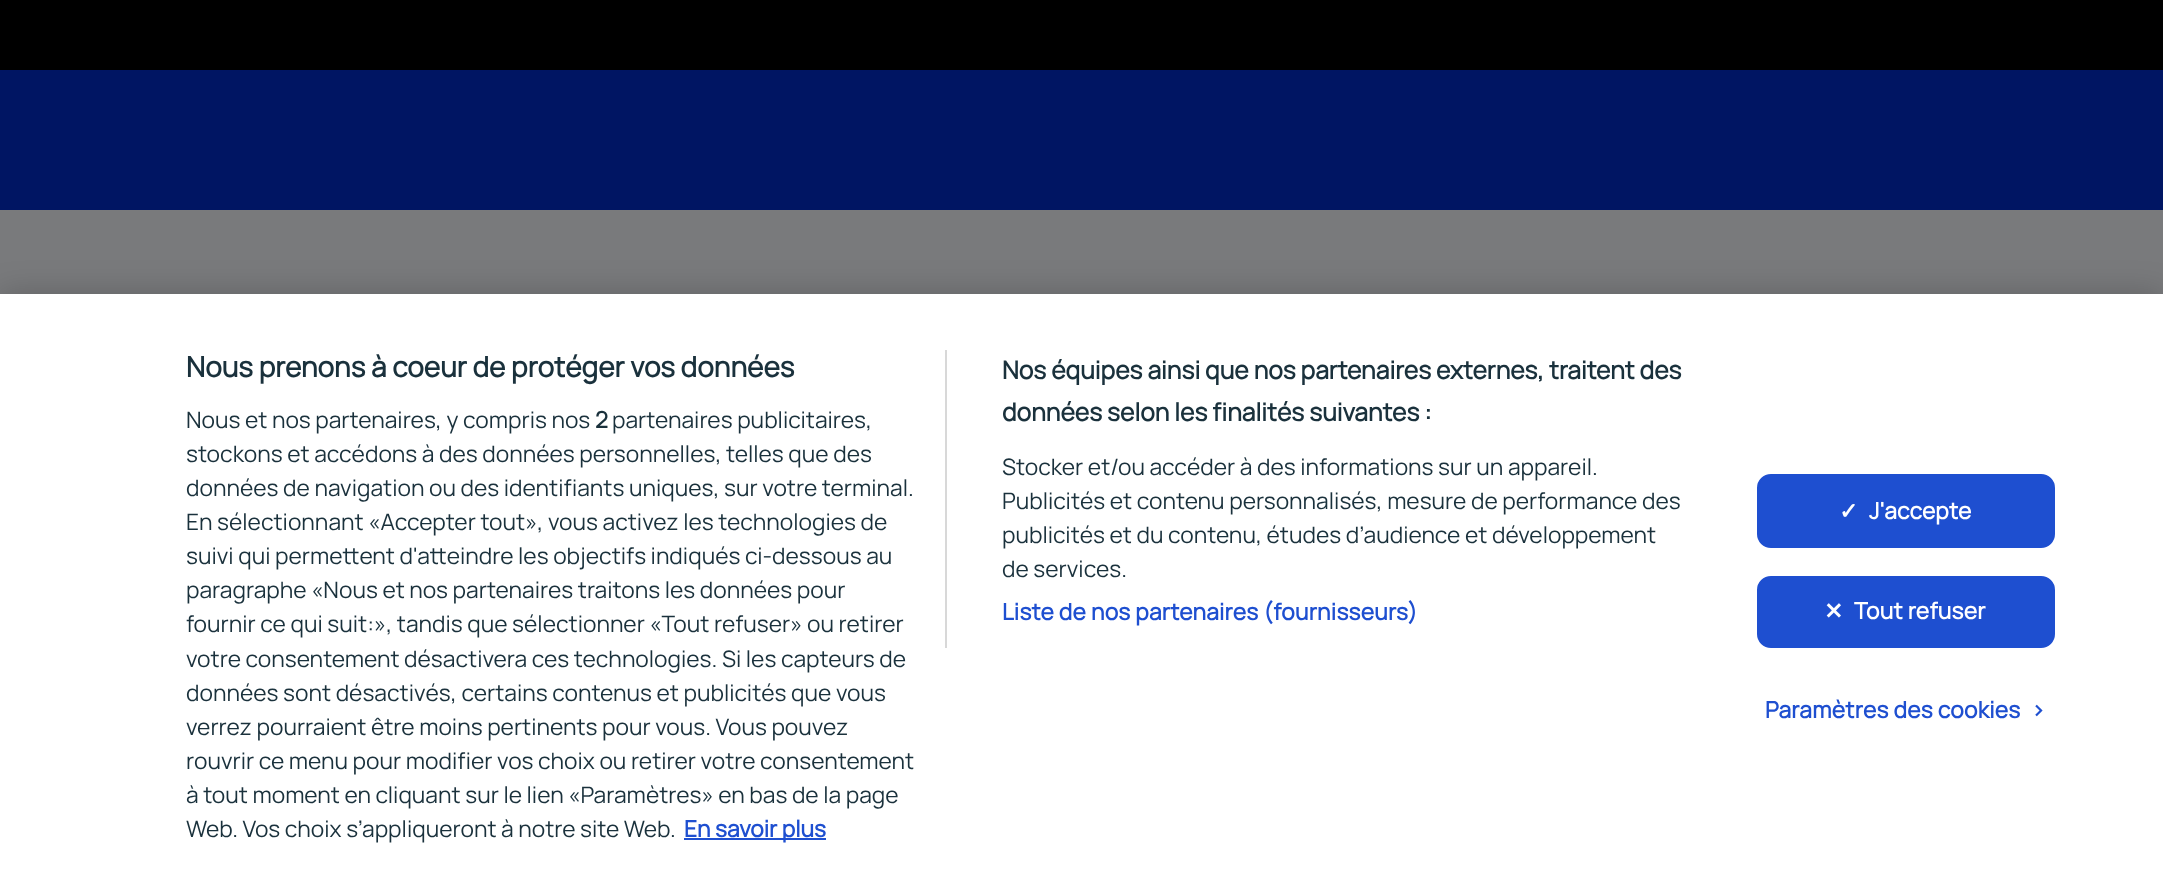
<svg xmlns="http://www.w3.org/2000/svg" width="2163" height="886">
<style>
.a{font:bold 28px Manrope;fill:#1a313c}
.b{font:bold 24.65px Manrope;fill:#1a313c}
.c{font:22.75px Manrope;fill:#1a313c}
.d{font:bold 22.75px Manrope;letter-spacing:0.25px;fill:#1e4fd0}
.e{font:bold 22.75px Manrope;fill:#1a313c}
.f{font:bold 22.75px Manrope;fill:#1e4fd0}
.g{font:bold 22.75px DejaVu Sans;letter-spacing:0.25px;fill:#fff}
.h{font:bold 22.75px Manrope;letter-spacing:0.25px;fill:#fff}
</style>
<rect width="100%" height="100%" fill="#797a7c"/>
<path fill="#000" d="M0 0h2163v70H0z"/>
<path fill="#001563" d="M0 70h2163v140H0z"/>
<path fill="#00000033" filter="blur(16px)" d="M0 294h2163v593H0z"/>
<path fill="#fff" d="M0 294h2163v592H0z"/>
<path fill="#d8d8d8" d="M945 350h2v298H945z"/>
<path fill="#1e4fd0" d="M684 838h142v2H684z"/>
<rect fill="#1e4fd0" stroke="#1e4fd0" stroke-width="2" x="1758" y="475" width="296" height="72" rx="13"/>
<rect fill="#1e4fd0" stroke="#1e4fd0" stroke-width="2" x="1758" y="577" width="296" height="70" rx="13"/>
<text class="a" x="186" y="377">Nous prenons à coeur de protéger vos données</text>
<text class="b" x="1002" y="379">Nos équipes ainsi que nos partenaires externes, traitent des</text>
<text class="b" x="1002" y="421">données selon les finalités suivantes :</text>
<text class="c" x="1002" y="475">Stocker et/ou accéder à des informations sur un appareil.</text>
<text class="c" x="1002" y="509">Publicités et contenu personnalisés, mesure de performance des</text>
<text class="c" x="1002" y="543">publicités et du contenu, études d’audience et développement</text>
<text class="c" x="1002" y="577">de services.</text>
<text class="d" x="1002" y="620">Liste de nos partenaires (fournisseurs)</text>
<text class="c" x="186" y="428">Nous et nos partenaires, y compris nos</text>
<text class="e" x="595" y="428">2</text>
<text class="c" x="612" y="428">partenaires publicitaires,</text>
<text class="c" x="186" y="462">stockons et accédons à des données personnelles, telles que des</text>
<text class="c" x="186" y="496">données de navigation ou des identifiants uniques, sur votre terminal.</text>
<text class="c" x="186" y="530">En sélectionnant «Accepter tout», vous activez les technologies de</text>
<text class="c" x="186" y="564">suivi qui permettent d'atteindre les objectifs indiqués ci-dessous au</text>
<text class="c" x="186" y="598">paragraphe «Nous et nos partenaires traitons les données pour</text>
<text class="c" x="186" y="632">fournir ce qui suit:», tandis que sélectionner «Tout refuser» ou retirer</text>
<text class="c" x="186" y="667">votre consentement désactivera ces technologies. Si les capteurs de</text>
<text class="c" x="186" y="701">données sont désactivés, certains contenus et publicités que vous</text>
<text class="c" x="186" y="735">verrez pourraient être moins pertinents pour vous. Vous pouvez</text>
<text class="c" x="186" y="769">rouvrir ce menu pour modifier vos choix ou retirer votre consentement</text>
<text class="c" x="186" y="803">à tout moment en cliquant sur le lien «Paramètres» en bas de la page</text>
<text class="c" x="186" y="837">Web. Vos choix s’appliqueront à notre site Web.</text>
<text class="f" x="684" y="837">En savoir plus</text>
<text class="g" x="1839" y="519">✓</text>
<text class="h" x="1869" y="519">J'accepte</text>
<text class="g" x="1824" y="619">✕</text>
<text class="h" x="1854" y="619">Tout refuser</text>
<text class="d" x="1765" y="718">Paramètres des cookies</text>
<text class="d" x="2031" y="718">&gt;</text>
</svg>
